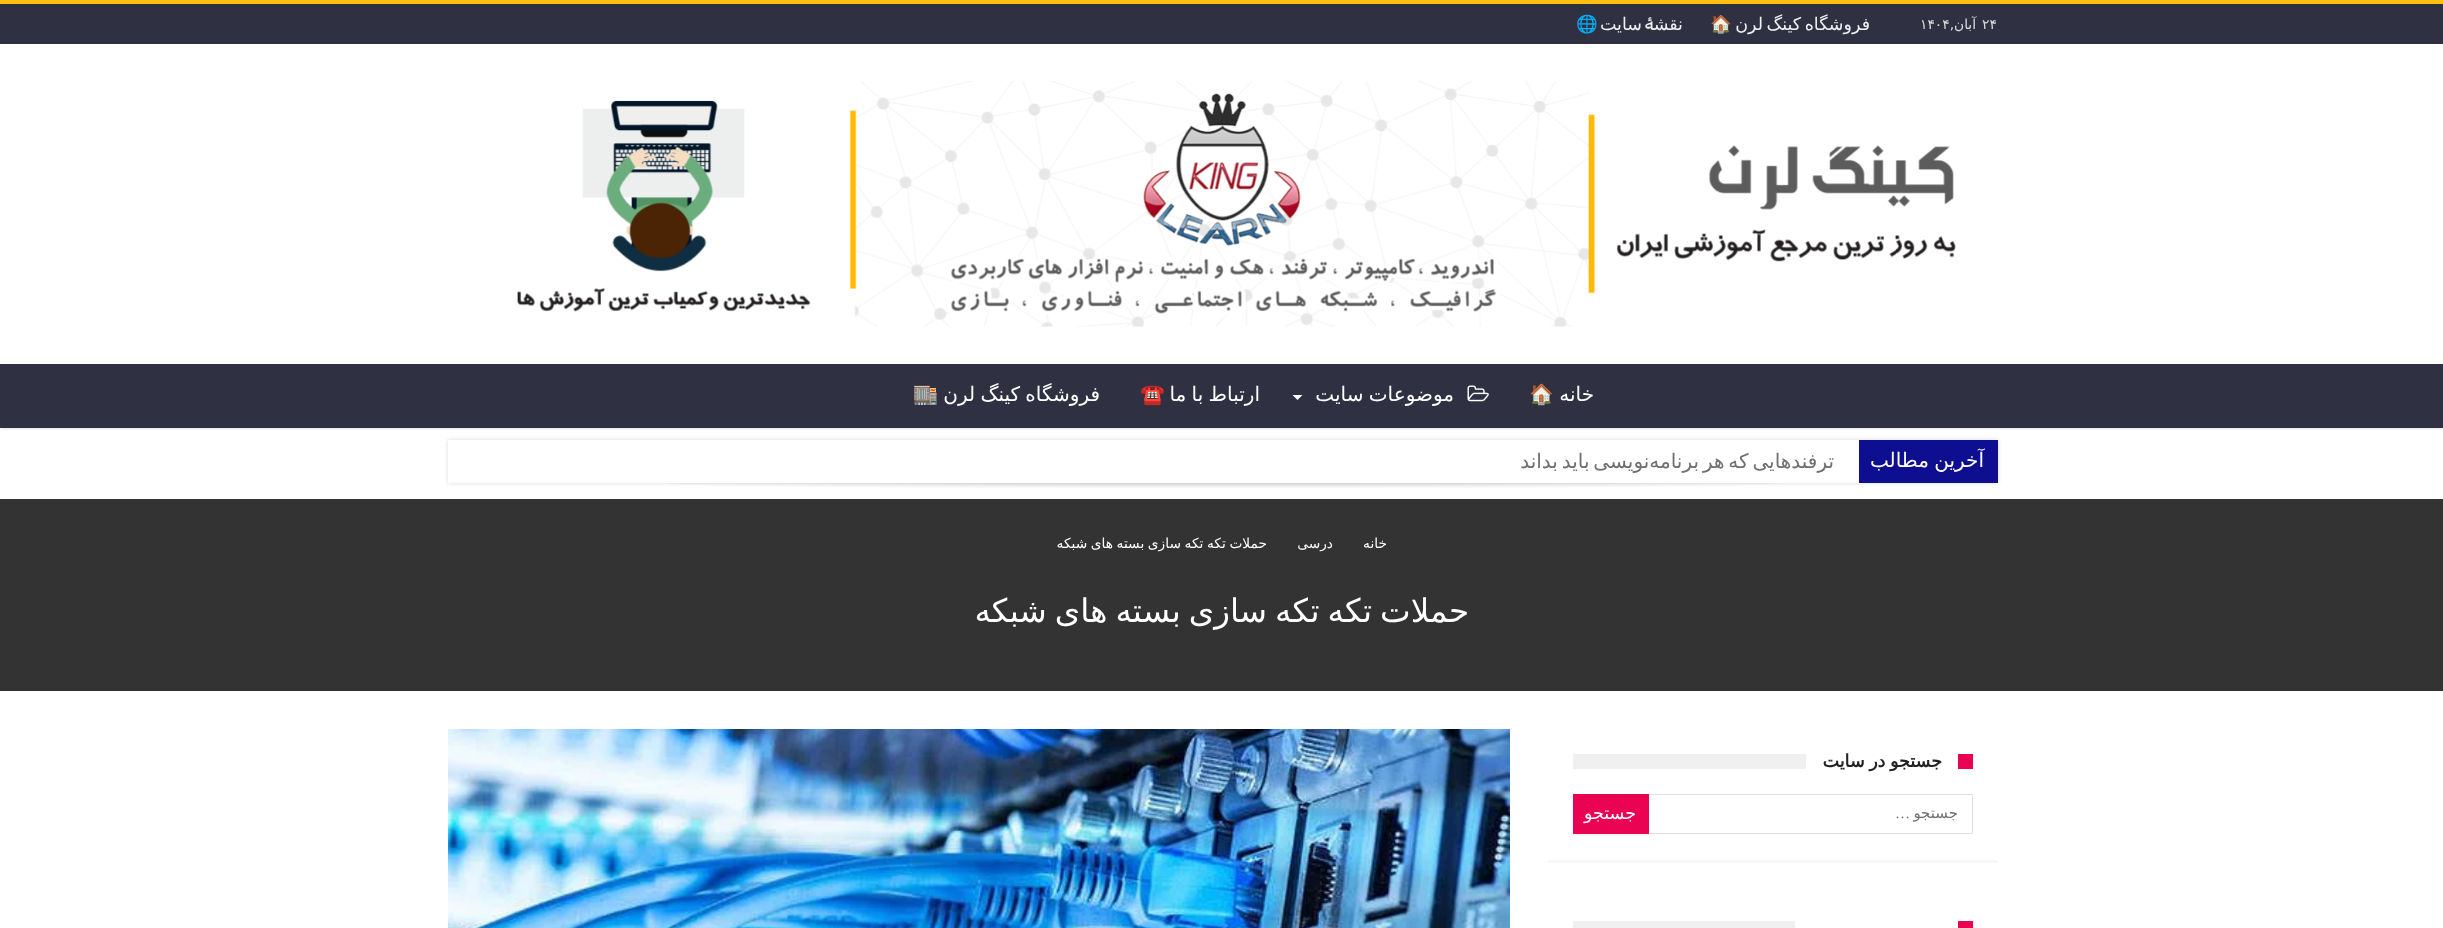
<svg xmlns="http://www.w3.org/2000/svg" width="2443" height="928">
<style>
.a{font:13.75px DejaVu Sans;fill:#ddd}
.b{font:13.75px DejaVu Sans;direction:rtl;fill:#ddd}
.c{font:17.5px DejaVu Sans;direction:rtl;fill:#f0f0f0}
.d{font:17.5px Noto Color Emoji;direction:rtl;fill:#f0f0f0}
.e{font:17.5px Lato;direction:rtl;fill:#f0f0f0}
.f{font:20px DejaVu Sans;direction:rtl;fill:#fff}
.g{font:20px Noto Color Emoji;direction:rtl;fill:#fff}
.h{font:20px DejaVu Sans;direction:rtl;fill:#707070}
.i{font:13.75px DejaVu Sans;direction:rtl;fill:#fff}
.j{font:32.5px DejaVu Sans;direction:rtl;fill:#fff}
.k{font:bold 17.5px DejaVu Sans;direction:rtl;fill:#222}
.l{font:15px DejaVu Sans;direction:rtl;fill:#707070}
.m{font:15px Liberation Serif;direction:rtl;fill:#707070}
.n{font:17.5px DejaVu Sans;direction:rtl;fill:#fff}
</style>
<defs>
<radialGradient id="g1" gradientUnits="userSpaceOnUse" cx="0" cy="0" r="1" gradientTransform="matrix(1096 0 0 16 1223 479)"><stop offset="0" stop-color="#000" stop-opacity="0.2"/><stop offset="0.65" stop-color="#000" stop-opacity="0"/></radialGradient>
<clipPath id="clip1"><path d="M448 440h1387v43H448z"/></clipPath>
</defs>
<rect width="100%" height="100%" fill="#fff"/>
<path fill="#ffbf11" d="M0 0h2443v4H0z"/>
<path fill="#2f3041" d="M0 4h2443v40H0z"/>
<image href="1.png" x="517" y="81" width="1439" height="246"/>
<path fill="#0000001c" filter="blur(1px)" d="M1 365h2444v64H1z"/>
<path fill="#2f3041" d="M0 364h2443v64H0z"/>
<image href="2.png" x="1467" y="385" width="22" height="17"/>
<path fill="#fff" d="M1292.5 395h10l-5 5z"/>
<path fill="#00000026" filter="blur(2px)" d="M448 440h1550v43H448z"/>
<path fill="#fff" d="M448 440h1411v43H448z"/>
<path fill="#0e0e91" d="M1859 440h139v43H1859z"/>
<path fill="url(#g1)" d="M669 483h1108v5H669z"/>
<path fill="#333" d="M0 499h2443v192H0z"/>
<path fill="#00000033" filter="blur(0.5px)" d="M1548 729h450v130H1548z"/>
<path fill="#fff" d="M1548 729h450v130H1548z"/>
<path fill="#f0f0f0" d="M1573 754h233v15H1573z"/>
<path fill="#ea0253" d="M1958 754h15v15H1958z"/>
<path fill="none" stroke="#e0e0e0" d="M1573.5 794.5h399v39H1573.5z"/>
<path fill="#f7f7f7" d="M1573 834v2h76v-40v38z"/>
<path fill="#ea0253" d="M1573 794h76v40H1573z"/>
<path fill="#f7f7f7" d="M1548 860h450v3H1548z"/>
<path fill="#00000033" filter="blur(0.5px)" d="M1548 896h450v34H1548z"/>
<path fill="#fff" d="M1548 896h450v32H1548z"/>
<path fill="#f0f0f0" d="M1573 921h222v7H1573z"/>
<path fill="#ea0253" d="M1958 921h15v7H1958z"/>
<path fill="#00000033" filter="blur(0.5px)" d="M448 729h1062v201H448z"/>
<image href="3.png" x="448" y="729" width="1062" height="199"/>
<text class="a" x="1982" y="29">۲۴</text>
<text class="b" x="1976" y="29">آبان,</text>
<text class="a" x="1920" y="29">۱۴۰۴</text>
<text class="c" x="1870" y="30" word-spacing="-2">فروشگاه کینگ لرن</text>
<text class="d" x="1732" y="30">🏠</text>
<text class="e" x="1654" y="30">‍ۀ</text>
<text class="c" x="1683" y="30">نقش‍</text>
<text class="c" x="1642" y="30">سایت</text>
<text class="d" x="1598" y="30">🌐</text>
<text class="f" x="1594" y="401">خانه</text>
<text class="g" x="1554" y="401">🏠</text>
<text class="f" x="1454" y="401" word-spacing="-1">موضوعات سایت</text>
<text class="f" x="1260" y="401" word-spacing="-1">ارتباط با ما</text>
<text class="g" x="1165" y="401">☎️</text>
<text class="f" x="1100" y="401" word-spacing="-1">فروشگاه کینگ لرن</text>
<text class="g" x="938" y="401">🏬</text>
<text class="f" x="1984" y="467" word-spacing="-1">آخرین مطالب</text>
<g clip-path="url(#clip1)">
<text class="h" x="1834" y="468" word-spacing="-2.5">ترفندهایی که هر برنامه‌نویسی باید بداند</text>
</g>
<text class="i" x="1387" y="548">خانه</text>
<text class="i" x="1333" y="548">درسی</text>
<text class="i" x="1267" y="548" word-spacing="-0.75">حملات تکه تکه سازی بسته های شبکه</text>
<text class="j" x="1469" y="622" word-spacing="-2.25">حملات تکه تکه سازی بسته های شبکه</text>
<text class="k" x="1942" y="767" word-spacing="-1">جستجو در سایت</text>
<text class="l" x="1958" y="818">جستجو</text>
<text class="m" x="1910" y="818">…</text>
<text class="n" x="1636" y="819">جستجو</text>
</svg>
